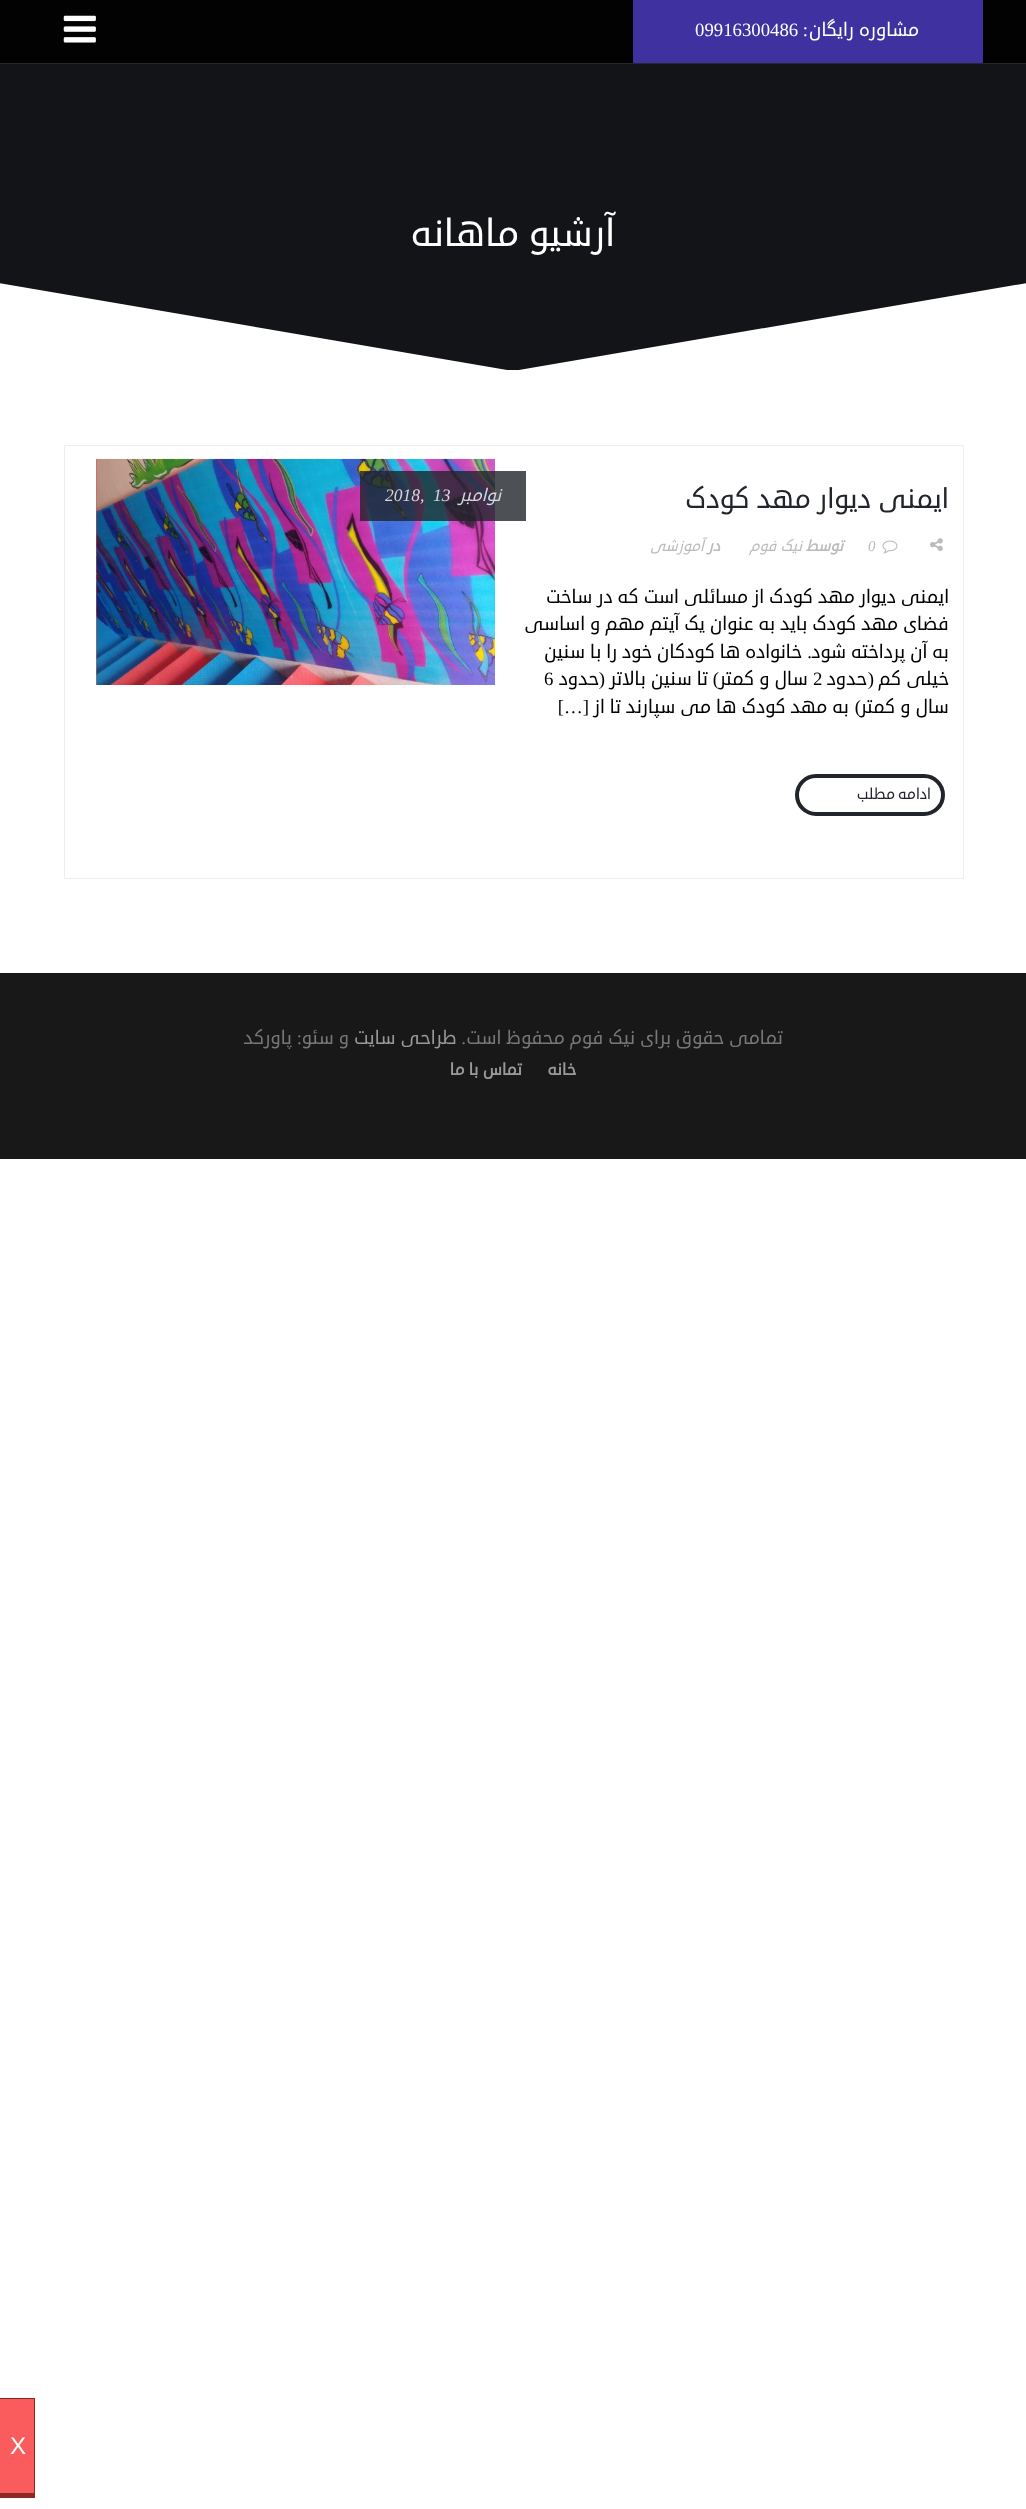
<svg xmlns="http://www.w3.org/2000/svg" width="1026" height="2509">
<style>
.a{font:18.75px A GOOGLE;direction:rtl;fill:#fff}
.b{font:18.75px Liberation Serif;direction:rtl;fill:#fff}
.c{font:18.75px Liberation Serif;fill:#fff}
.d{font:37.5px A GOOGLE;direction:rtl;fill:#fff}
.e{font:27.5px A GOOGLE;direction:rtl;fill:#21242a}
.f{font:italic 15px Liberation Serif;fill:#bbb}
.g{font:italic bold 15px A GOOGLE;direction:rtl;fill:#bbb}
.h{font:italic 15px A GOOGLE;direction:rtl;fill:#bbb}
.i{font:18.75px A GOOGLE;direction:rtl;fill:#000}
.j{font:18.75px Liberation Serif;direction:rtl;fill:#000}
.k{font:18.75px Liberation Serif;fill:#000}
.l{font:15px A GOOGLE;letter-spacing:2.5px;direction:rtl;fill:#21242a}
.m{font:italic 17.5px A GOOGLE;direction:rtl;fill:#d6d6da}
.n{font:italic 17.5px Liberation Serif;fill:#d6d6da}
.o{font:18.75px A GOOGLE;direction:rtl;fill:#777}
.p{font:18.75px Liberation Serif;direction:rtl;fill:#777}
.q{font:18.75px A GOOGLE;direction:rtl;fill:#999}
.r{font:bold 16.25px A GOOGLE;direction:rtl;fill:#999}
.s{font:24px Liberation Sans;fill:#fff}
</style>
<defs>
<clipPath id="clip1"><path d="M0 0h1026v370H0z"/></clipPath>
<linearGradient id="g1" gradientUnits="userSpaceOnUse" x1="452" y1="728" x2="139" y2="416"><stop offset="0" stop-color="#f3cf3f"/><stop offset="1" stop-color="#f33f58"/></linearGradient>
</defs>
<rect width="100%" height="100%" fill="#fff"/>
<path fill="#020202" d="M0 0h1026v63H0z"/>
<path fill="#282828" d="M0 63h1026v1H0z"/>
<path fill="#3f32a0" d="M633 0h350v63H633z"/>
<image href="1.png" x="63" y="15" width="33" height="28"/>
<path fill="#131417" d="M0 64h1026v306H0z"/>
<g clip-path="url(#clip1)">
<path fill="#fff" d="M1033 282v89h-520z"/>
<path fill="#fff" d="M-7 371v-89l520 89z"/>
</g>
<path fill="none" stroke="#eee" d="M64.5 445.5h899v433H64.5z"/>
<image href="2.png" x="930" y="538" width="13" height="13"/>
<image href="3.png" x="882" y="540" width="16" height="14"/>
<rect fill="none" stroke="#21242a" stroke-width="4" x="797" y="776" width="146" height="38" rx="19"/>
<path fill="url(#g1)" d="M96 459h1v226H96z"/>
<image href="4.png" x="96" y="458" width="399" height="227"/>
<path fill="#21242acc" d="M360 471h166v50H360z"/>
<path fill="#181818" d="M0 973h1026v186H0z"/>
<path fill="#8e2626" d="M0 2398h35v1H0z"/>
<path fill="#8e2626" d="M34 2398h1v100H34z"/>
<path fill="#8e2626" d="M0 2493h35v5H0z"/>
<path fill="#fa5c5d" d="M0 2399h34v94H0z"/>
<text class="a" x="919" y="36">مشاوره رایگان</text>
<text class="b" x="808" y="36">:</text>
<text class="c" x="695" y="36">09916300486</text>
<text class="d" x="615" y="246">آرشیو ماهانه</text>
<text class="e" x="949" y="508">ایمنی دیوار مهد کودک</text>
<text class="f" x="868" y="551">0</text>
<text class="g" x="843" y="551">توسط</text>
<text class="h" x="802" y="551">نیک فوم</text>
<text class="g" x="720" y="551">در</text>
<text class="h" x="704" y="551">آموزشی</text>
<text class="i" x="949" y="603">ایمنی دیوار مهد کودک از مسائلی است که در ساخت</text>
<text class="i" x="949" y="630">فضای مهد کودک باید به عنوان یک آیتم مهم و اساسی</text>
<text class="i" x="949" y="658">به آن پرداخته شود</text>
<text class="j" x="812" y="658">.</text>
<text class="i" x="802" y="658">خانواده ها کودکان خود را با سنین</text>
<text class="i" x="949" y="685">خیلی کم</text>
<text class="j" x="874" y="685">(</text>
<text class="i" x="867" y="685">حدود</text>
<text class="k" x="813" y="685">2</text>
<text class="j" x="719" y="685">)</text>
<text class="i" x="808" y="685">سال و کمتر</text>
<text class="i" x="708" y="685">تا سنین بالاتر</text>
<text class="j" x="605" y="685">(</text>
<text class="i" x="599" y="685">حدود</text>
<text class="k" x="544" y="685">6</text>
<text class="j" x="861" y="713">)</text>
<text class="i" x="949" y="713">سال و کمتر</text>
<text class="i" x="849" y="713">به مهد کودک ها می سپارند تا از</text>
<text class="j" x="589" y="713">[…]</text>
<text class="l" x="931" y="799" word-spacing="-1">ادامه مطلب</text>
<text class="m" x="501" y="501">نوامبر</text>
<text class="n" x="433" y="501">13</text>
<text class="n" x="420" y="501">,</text>
<text class="n" x="385" y="501">2018</text>
<text class="o" x="783" y="1044">تمامی حقوق برای نیک فوم محفوظ است</text>
<text class="p" x="466" y="1044">.</text>
<text class="q" x="457" y="1044">طراحی سایت</text>
<text class="o" x="349" y="1044">و سئو</text>
<text class="p" x="302" y="1044">:</text>
<text class="o" x="292" y="1044">پاورکد</text>
<text class="r" x="576" y="1075">خانه</text>
<text class="r" x="522" y="1075">تماس با ما</text>
<text class="s" x="10" y="2454">X</text>
</svg>
